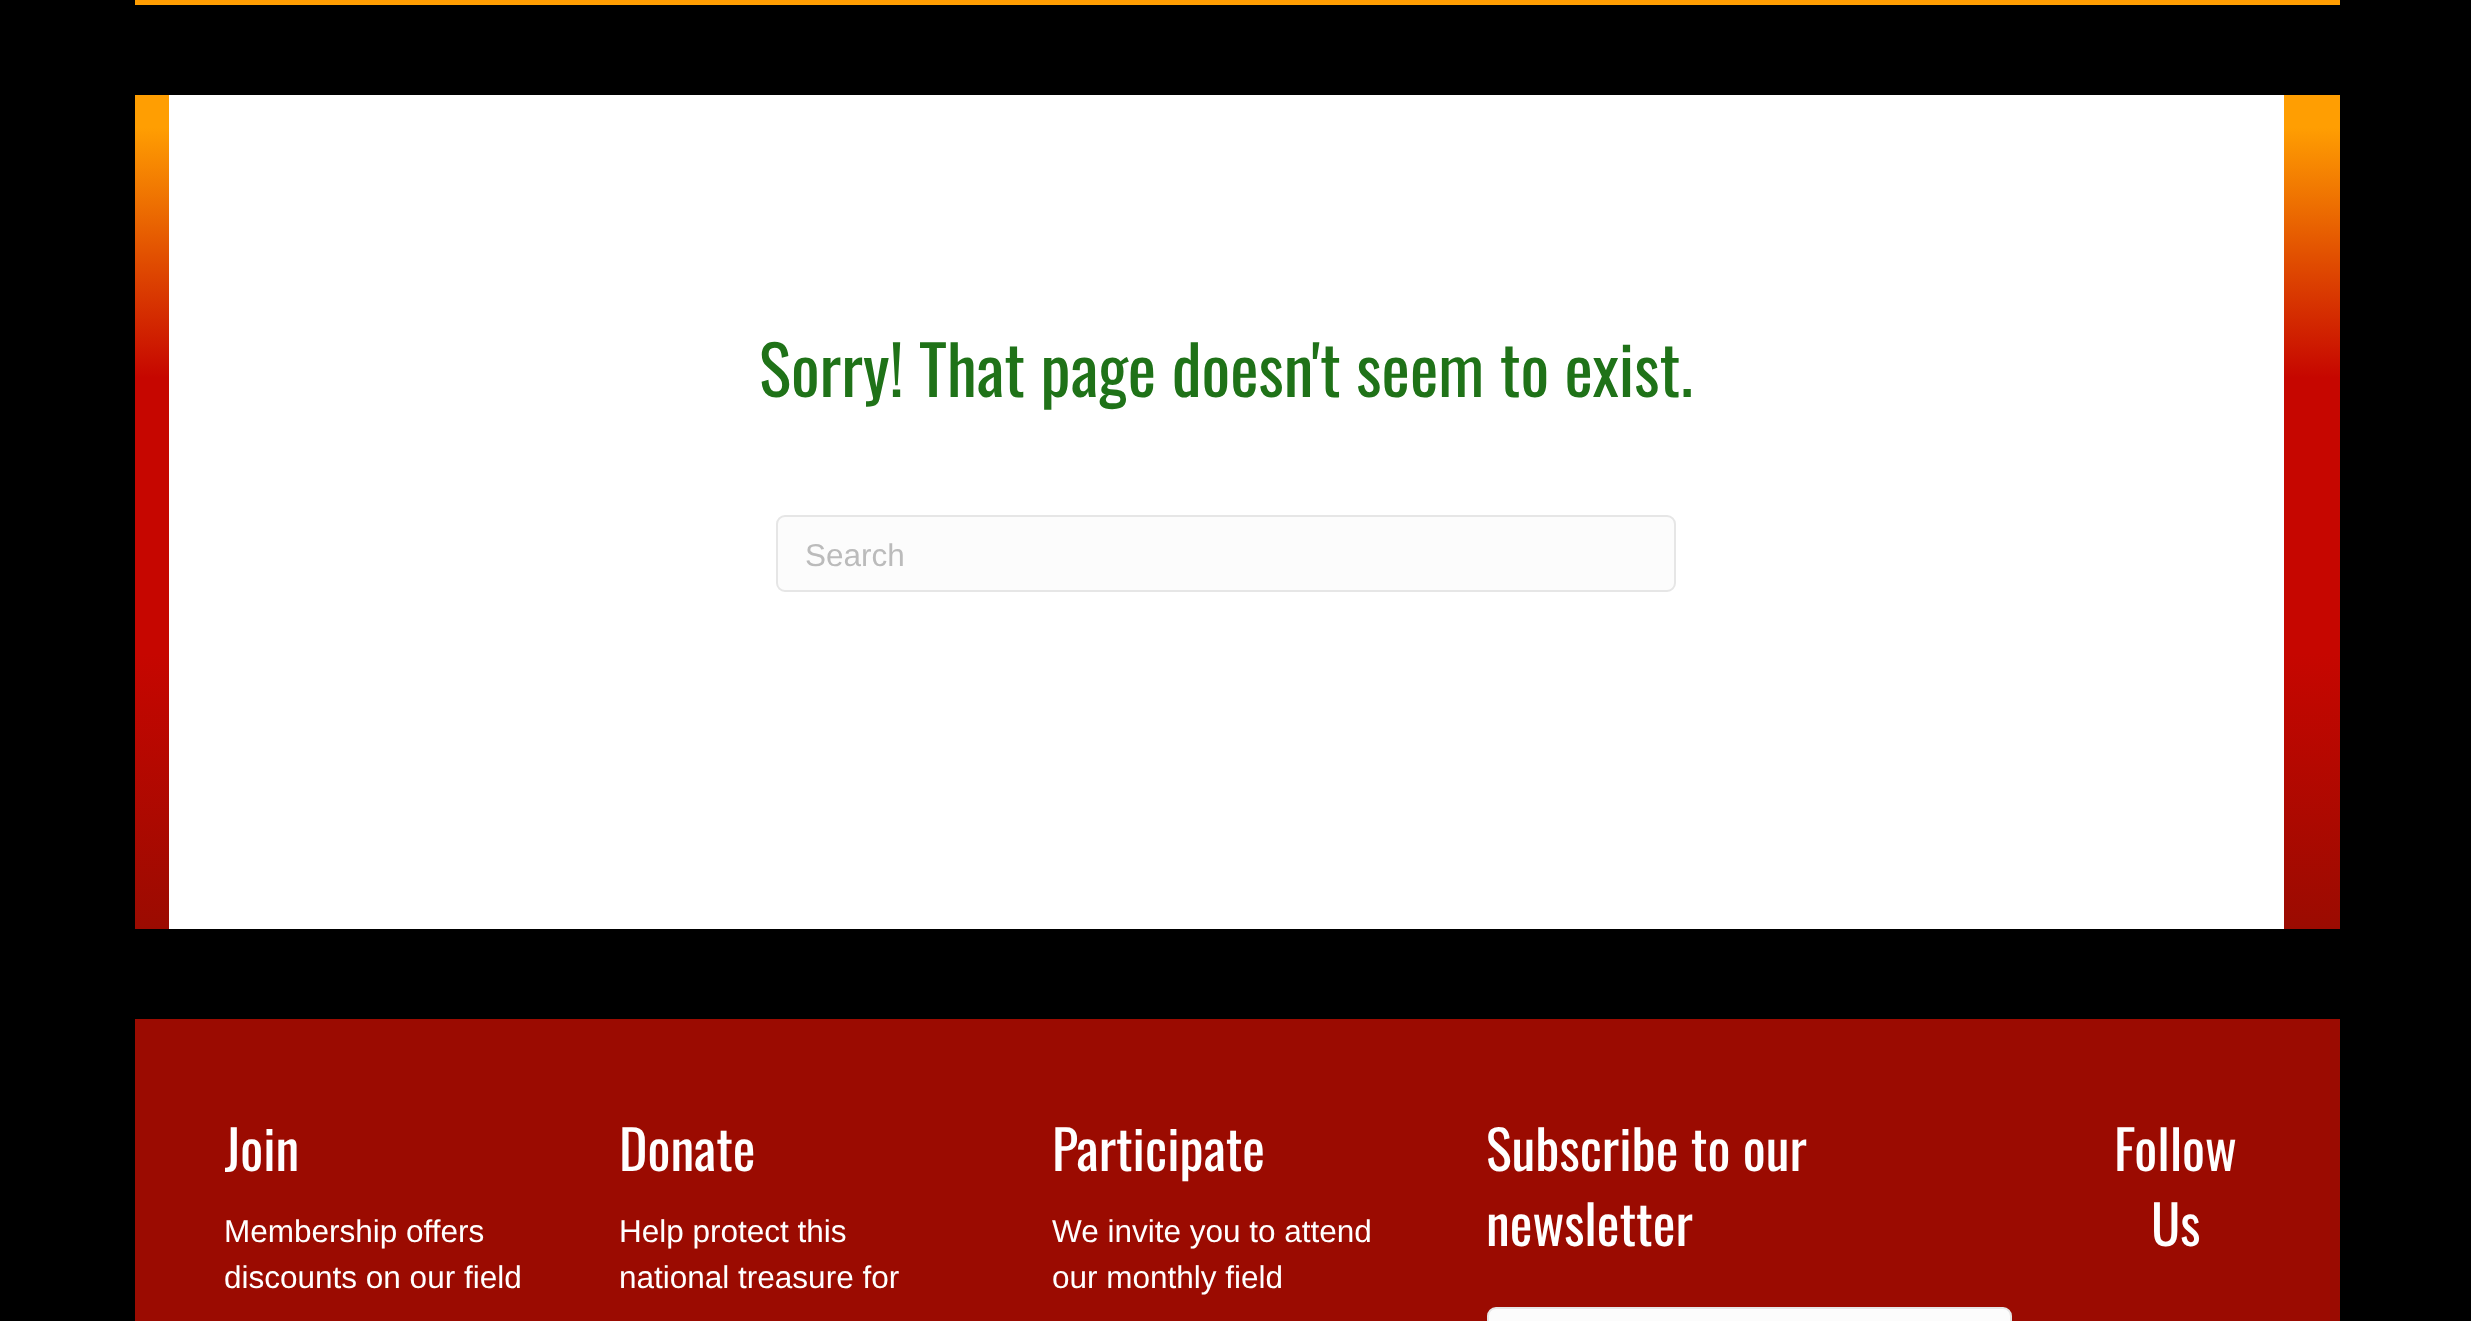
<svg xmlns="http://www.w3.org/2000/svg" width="2471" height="1321">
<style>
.a{font:67.5px Oswald;fill:#1f7218}
.b{font:31.5px Liberation Sans;fill:#bbb}
.c{font:54px Oswald;fill:#fff}
.d{font:31.5px Liberation Sans;fill:#fff}
</style>
<defs>
<linearGradient id="g1" gradientUnits="userSpaceOnUse" x1="1238" y1="-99" x2="1238" y2="4.5"><stop offset="0.28" stop-color="#ff7900"/><stop offset="1" stop-color="#ff9e02"/></linearGradient>
<linearGradient id="g2" gradientUnits="userSpaceOnUse" x1="1238" y1="94" x2="1238" y2="929"><stop offset="0.04" stop-color="#ff9e02"/><stop offset="0.34" stop-color="#c60600"/><stop offset="0.67" stop-color="#c60600"/><stop offset="1" stop-color="#9b0b01"/></linearGradient>
<clipPath id="clip1"><path d="M225 1109h304v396H225z"/></clipPath>
</defs>
<rect width="100%" height="100%" fill="#000"/>
<path fill="url(#g1)" d="M135 0h2205v5H135z"/>
<path fill="url(#g2)" d="M135 95h2205v834H135z"/>
<path fill="#fff" d="M169 95h2115v834H169z"/>
<rect fill="#fcfcfc" stroke="#e6e6e6" stroke-width="2" x="777" y="516" width="898" height="75" rx="8"/>
<path fill="#9b0b01" d="M135 1019h2205v302H135z"/>
<rect fill="#fcfcfc" stroke="#e6e6e6" stroke-width="2" x="1488" y="1308" width="523" height="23" rx="8"/>
<text class="a" x="759" y="397">Sorry! That page doesn't seem to exist.</text>
<text class="b" x="805" y="566">Search</text>
<g clip-path="url(#clip1)">
<text class="c" x="224" y="1171">Join</text>
</g>
<text class="d" x="224" y="1242">Membership offers</text>
<text class="d" x="224" y="1288">discounts on our field</text>
<text class="c" x="619" y="1171">Donate</text>
<text class="d" x="619" y="1242">Help protect this</text>
<text class="d" x="619" y="1288">national treasure for</text>
<text class="c" x="1052" y="1171">Participate</text>
<text class="d" x="1052" y="1242">We invite you to attend</text>
<text class="d" x="1052" y="1288">our monthly field</text>
<text class="c" x="1486" y="1171">Subscribe to our</text>
<text class="c" x="1486" y="1246">newsletter</text>
<text class="c" x="2114" y="1171">Follow</text>
<text class="c" x="2151" y="1246">Us</text>
</svg>
